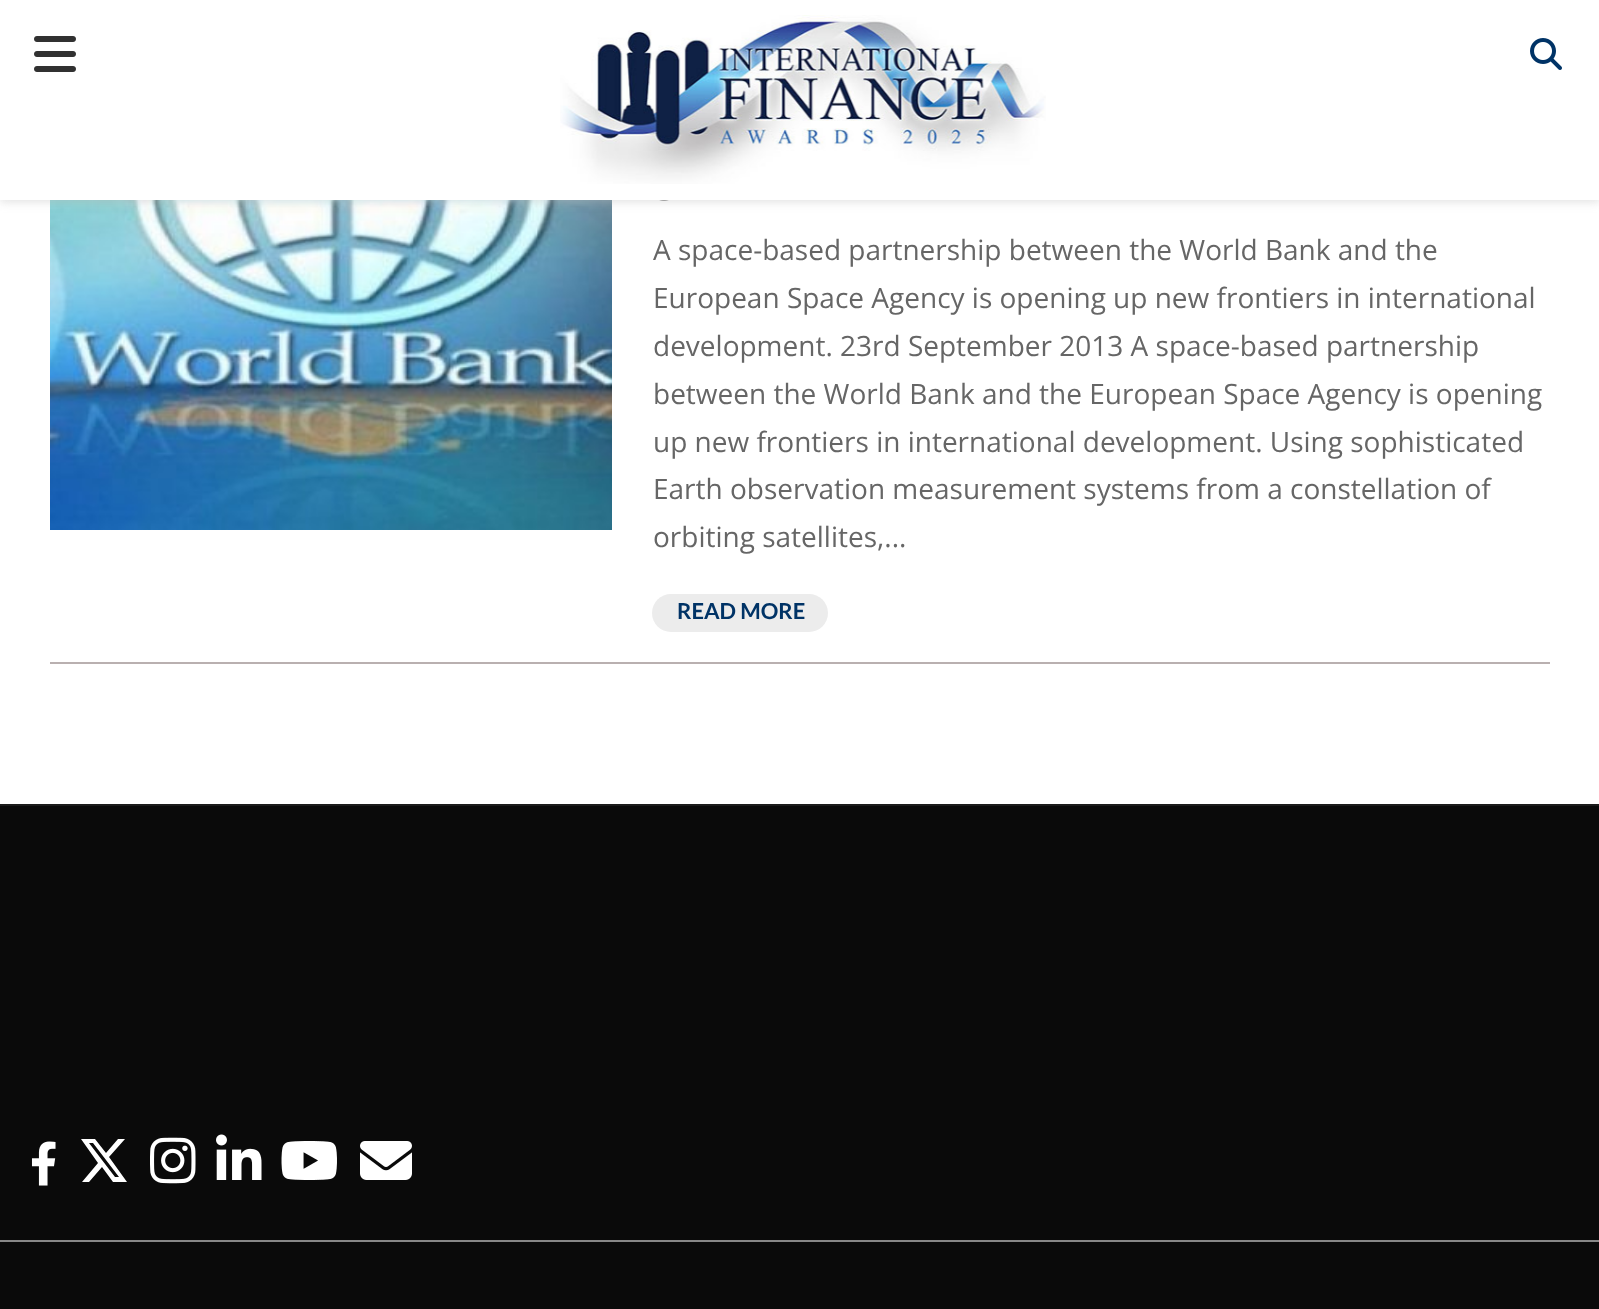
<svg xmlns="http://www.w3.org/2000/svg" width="1599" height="1309">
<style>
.a{font:28px Open Sans;fill:#666}
.b{font:bold 22px Lato;fill:#036}
</style>
<rect width="100%" height="100%" fill="#fff"/>
<image href="4.png" x="50" y="200" width="562" height="330"/>
<image href="5.png" x="659" y="200" width="10" height="1"/>
<path fill="#bebebe75" filter="blur(5px)" d="M0 2h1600v200H0z"/>
<path fill="#fff" d="M0 0h1599v200H0z"/>
<image href="1.png" x="34" y="36" width="42" height="36"/>
<image href="2.png" x="560" y="15" width="486" height="169"/>
<image href="3.png" x="1530" y="38" width="32" height="32"/>
<path fill="#b9b0b0" d="M50 662h1500v2H50z"/>
<rect fill="#ececec" x="652" y="594" width="176" height="38" rx="19"/>
<path fill="#0a0a0a" d="M0 806h1599v503H0z"/>
<path fill="#1b1b1b" d="M0 804h1599v2H0z"/>
<image href="6.png" x="31" y="1141" width="25" height="45"/>
<path fill="#fff" d="M118 1139h7l-16 18l18 25h-14l-11-15l-13 15h-7l16-19l-17-24h14l11 14zm-3 38h4l-26-34h-4z"/>
<image href="7.png" x="150" y="1137" width="46" height="47"/>
<image href="8.png" x="216" y="1134" width="46" height="46"/>
<image href="9.png" x="281" y="1141" width="56" height="39"/>
<image href="10.png" x="360" y="1141" width="52" height="39"/>
<path fill="#888" d="M0 1240h1599v2H0z"/>
<text class="a" x="653" y="260">A space-based partnership between the World Bank and the</text>
<text class="a" x="653" y="308">European Space Agency is opening up new frontiers in international</text>
<text class="a" x="653" y="356">development. 23rd September 2013 A space-based partnership</text>
<text class="a" x="653" y="404">between the World Bank and the European Space Agency is opening</text>
<text class="a" x="653" y="452">up new frontiers in international development. Using sophisticated</text>
<text class="a" x="653" y="499">Earth observation measurement systems from a constellation of</text>
<text class="a" x="653" y="547">orbiting satellites,...</text>
<text class="b" x="677" y="619">READ MORE</text>
</svg>
